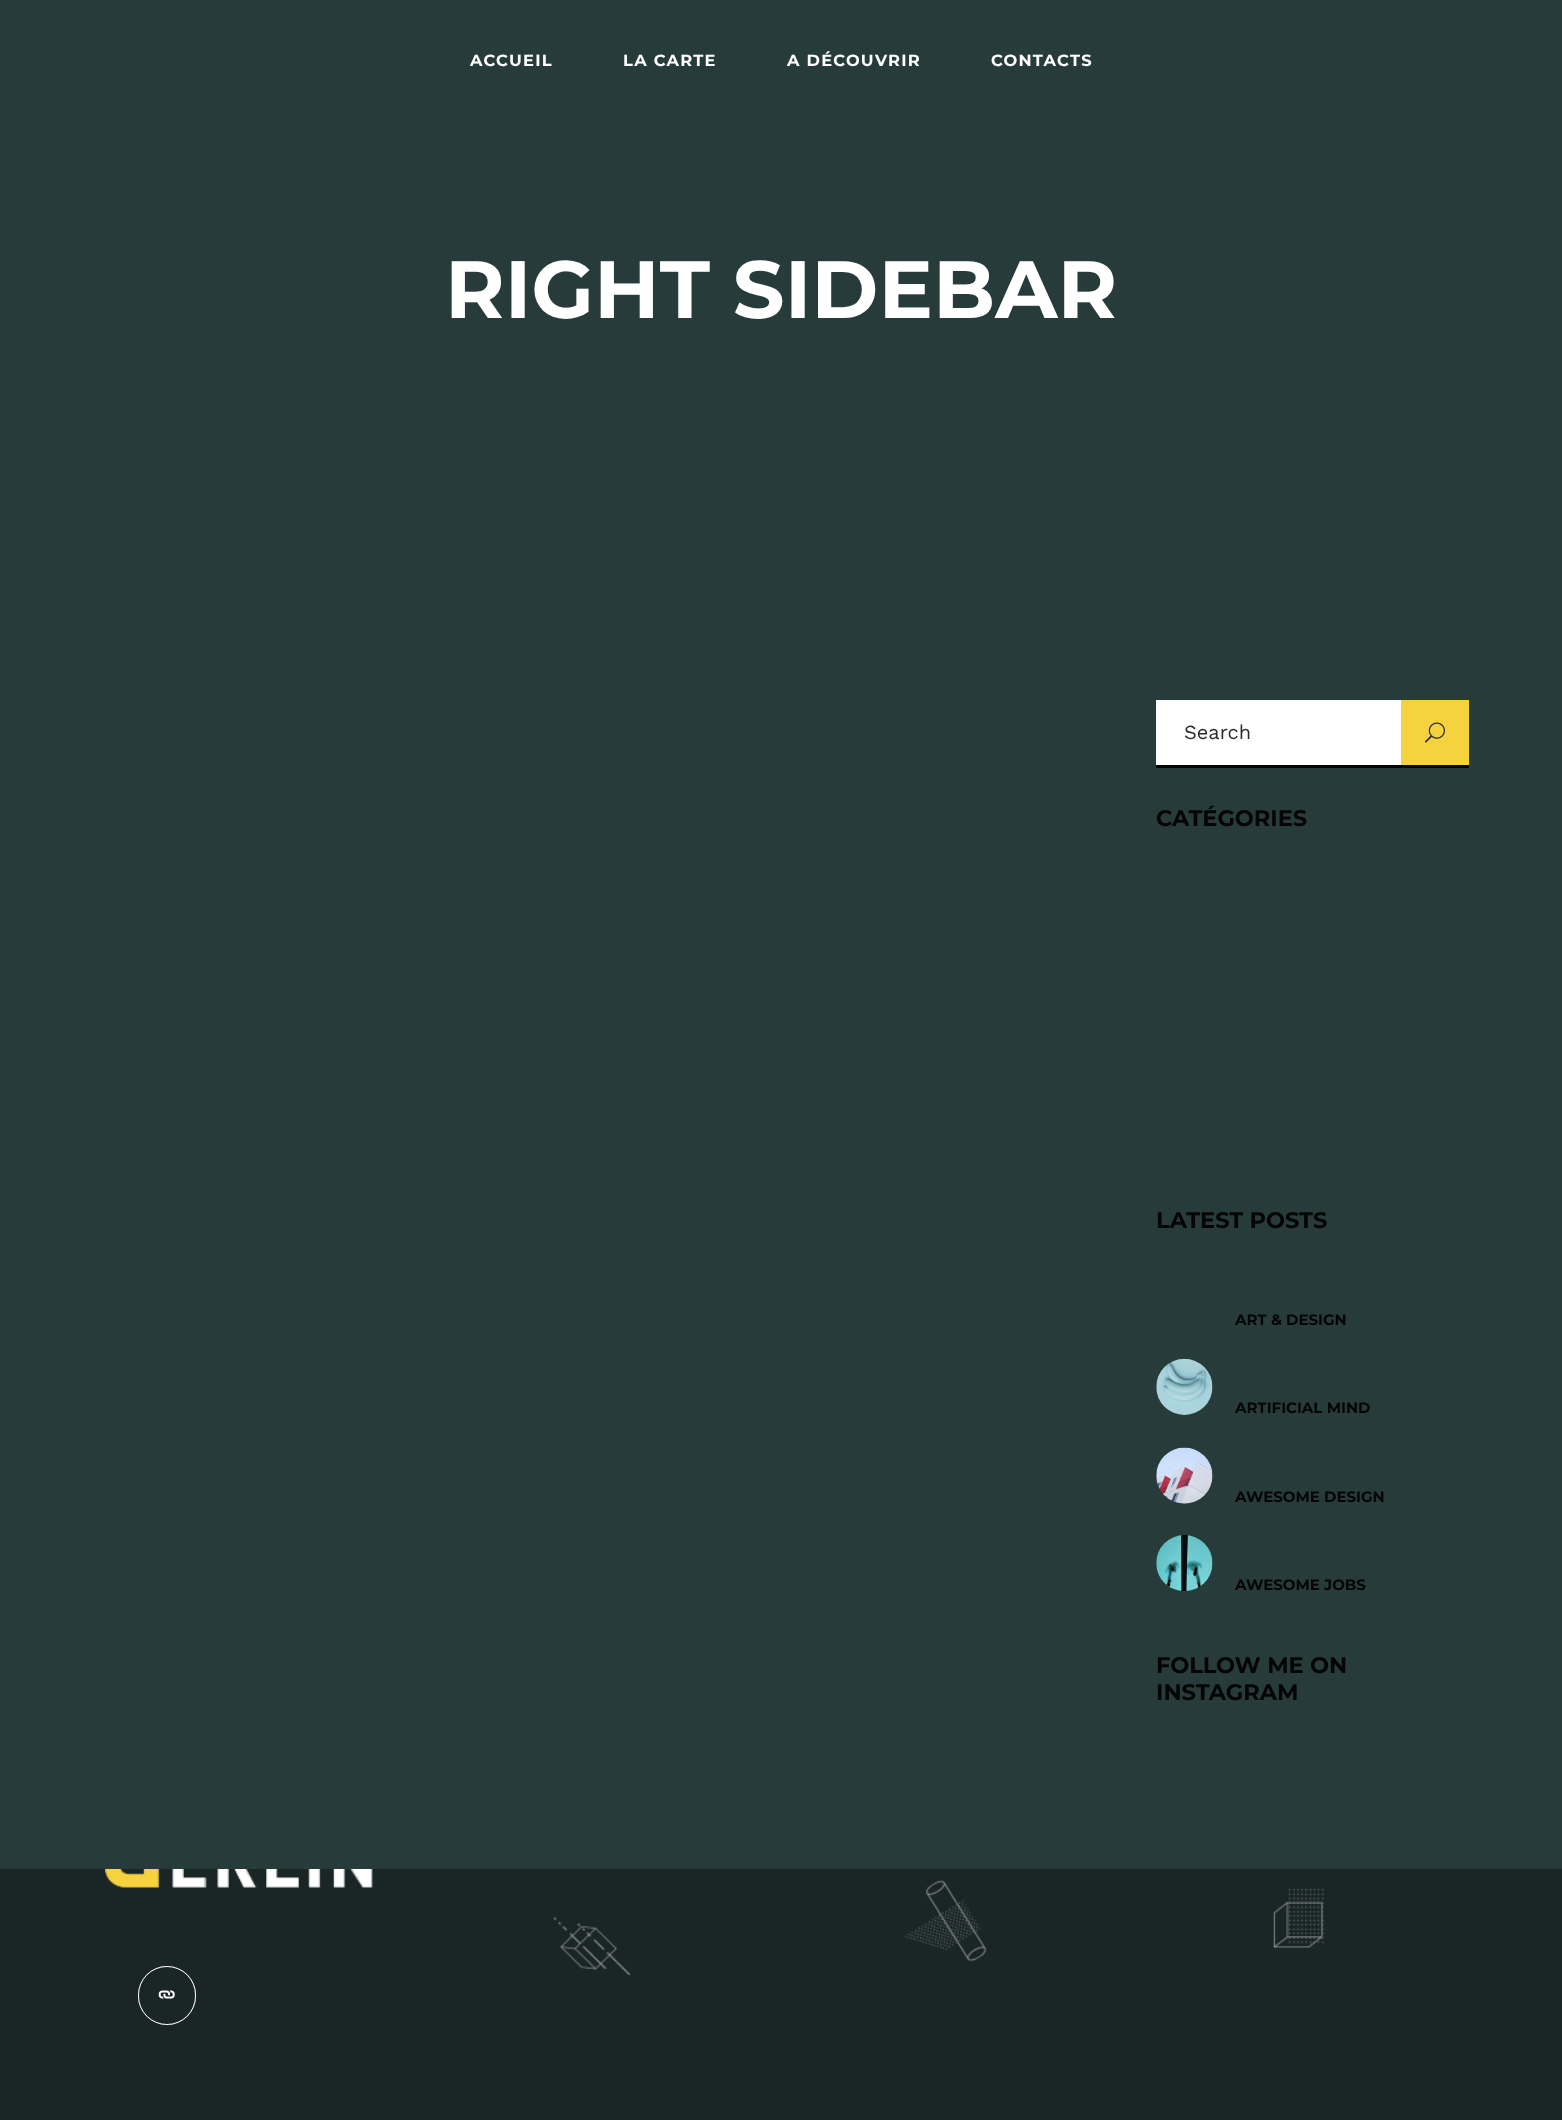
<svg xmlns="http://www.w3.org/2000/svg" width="1562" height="2120">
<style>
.a{font:bold 16.25px Montserrat;letter-spacing:1.25px;fill:#fff}
.b{font:bold 81.25px Montserrat;fill:#fff}
.c{font:20px Work Sans;fill:#2c2c2c}
.d{font:bold 22.5px Montserrat;fill:#050505}
.e{font:bold 15px Montserrat;fill:#050505}
</style>
<defs>
<clipPath id="clip1"><path d="M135 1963h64v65h-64zm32 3c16 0 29 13 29 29v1c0 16-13 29-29 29c-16 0-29-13-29-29v-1c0-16 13-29 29-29z" clip-rule="evenodd"/></clipPath>
</defs>
<rect width="100%" height="100%" fill="#1a2626"/>
<path fill="#273c3a" d="M0 0h1562v1869H0z"/>
<path fill="#fff" d="M1156 700h245v65H1156z"/>
<path fill="#050505" d="M1156 765h313v3H1156z"/>
<path fill="#f6d23f" d="M1401 700h68v65H1401z"/>
<image href="1.png" x="1425" y="722" width="20" height="21"/>
<image href="2.png" x="1156" y="1358" width="57" height="57"/>
<image href="3.png" x="1156" y="1447" width="57" height="57"/>
<image href="4.png" x="1156" y="1535" width="57" height="56"/>
<image href="5.png" x="105" y="1869" width="268" height="19"/>
<g clip-path="url(#clip1)">
<rect fill="#fff" filter="blur(0.5px)" x="138" y="1966" width="58" height="59" rx="29"/>
</g>
<rect fill="none" stroke="#fff" x="138.5" y="1966.5" width="57" height="58" rx="28.5"/>
<image href="6.png" x="158" y="1990" width="17" height="9"/>
<image href="7.png" x="553" y="1917" width="78" height="58"/>
<image href="8.png" x="905" y="1880" width="82" height="82"/>
<image href="9.png" x="1273" y="1888" width="51" height="60"/>
<text class="a" x="470" y="66">ACCUEIL</text>
<text class="a" x="623" y="66">LA CARTE</text>
<text class="a" x="787" y="66">A DÉCOUVRIR</text>
<text class="a" x="991" y="66">CONTACTS</text>
<text class="b" x="445" y="318">RIGHT SIDEBAR</text>
<text class="c" x="1184" y="739">Search</text>
<text class="d" x="1156" y="826">CATÉGORIES</text>
<text class="d" x="1156" y="1228">LATEST POSTS</text>
<text class="e" x="1235" y="1325">ART &amp; DESIGN</text>
<text class="e" x="1235" y="1413">ARTIFICIAL MIND</text>
<text class="e" x="1235" y="1502">AWESOME DESIGN</text>
<text class="e" x="1235" y="1590">AWESOME JOBS</text>
<text class="d" x="1156" y="1673">FOLLOW ME ON</text>
<text class="d" x="1156" y="1700">INSTAGRAM</text>
</svg>
